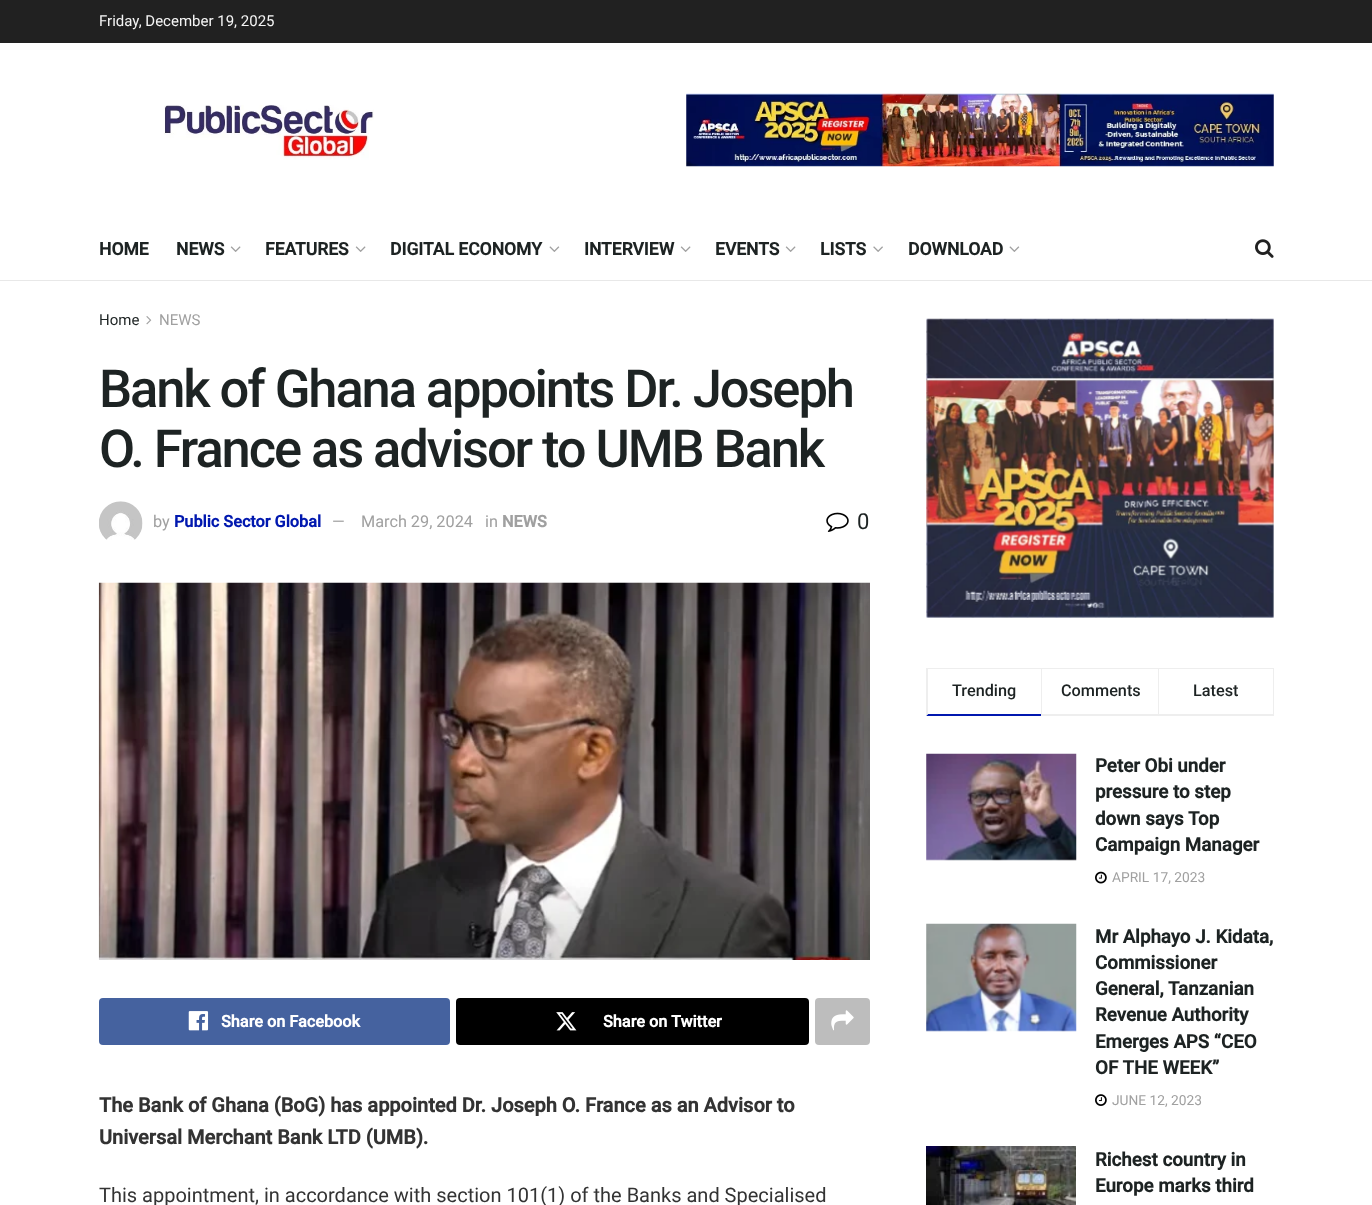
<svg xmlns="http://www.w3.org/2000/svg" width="1372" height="1205">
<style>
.a{font:15px Roboto;fill:#f5f5f5}
.b{font:bold 17.5px Roboto;fill:#1d2323}
.c{font:15px Roboto;fill:#1d2323}
.d{font:15px Roboto;fill:#a0a0a0}
.e{font:500 52.5px Roboto;letter-spacing:-2.1px;fill:#1d2323}
.f{font:16.25px Roboto;fill:#a0a0a0}
.g{font:bold 16.25px Roboto;fill:#0118af}
.h{font:bold 16.25px Roboto;fill:#a0a0a0}
.i{font:22px Roboto;fill:#1d2323}
.j{font:bold 16.25px Roboto;fill:#fff}
.k{font:bold 20px Roboto;fill:#333}
.l{font:20px Roboto;fill:#333}
.m{font:500 16.25px Roboto;fill:#1d2323}
.n{font:bold 18.75px Roboto;fill:#1d2323}
.o{font:13.75px Roboto;fill:#a0a0a0}
</style>
<rect width="100%" height="100%" fill="#fff"/>
<path fill="#212121" d="M0 0h1372v43H0z"/>
<image href="1.png" x="164" y="105" width="210" height="55"/>
<image href="2.png" x="686" y="93" width="588" height="74"/>
<path fill="#e8e8e8" d="M0 280h1372v1H0z"/>
<image href="3.png" x="230" y="246" width="11" height="6"/>
<image href="3.png" x="355" y="246" width="11" height="6"/>
<image href="4.png" x="549" y="246" width="11" height="6"/>
<image href="3.png" x="680" y="246" width="11" height="6"/>
<image href="3.png" x="785" y="246" width="11" height="6"/>
<image href="5.png" x="873" y="246" width="10" height="6"/>
<image href="4.png" x="1009" y="246" width="11" height="6"/>
<image href="6.png" x="1255" y="239" width="19" height="19"/>
<image href="7.png" x="146" y="316" width="6" height="9"/>
<image href="8.png" x="99" y="501" width="44" height="39"/>
<image href="9.png" x="826" y="512" width="23" height="20"/>
<image href="11.png" x="527" y="582" width="146" height="1"/>
<image href="10.png" x="98" y="582" width="772" height="378"/>
<rect fill="#45629f" x="99" y="998" width="351" height="47" rx="4"/>
<image href="12.png" x="188" y="1011" width="21" height="20"/>
<rect fill="#000" x="456" y="998" width="353" height="47" rx="4"/>
<image href="13.png" x="556" y="1012" width="21" height="19"/>
<rect fill="#bdbdbd" x="815" y="998" width="55" height="47" rx="4"/>
<image href="14.png" x="831" y="1010" width="23" height="21"/>
<image href="15.png" x="926" y="318" width="348" height="300"/>
<path fill="#eee" d="M926 668h348v1H926z"/>
<path fill="#0118af" d="M1041 716h-115l2-2h113z"/>
<path fill="#eee" d="M926 716v-48l2 1v45z"/>
<path fill="#eee" d="M1041 714h117v2H1041z"/>
<path fill="#eee" d="M1041 668h1v48H1041z"/>
<path fill="#eee" d="M1273 668h1v48H1273z"/>
<path fill="#eee" d="M1158 714h116v2H1158z"/>
<path fill="#eee" d="M1158 668h1v48H1158z"/>
<path fill="#f7f7f7" d="M926 754h150v106H926z"/>
<image href="17.png" x="1009" y="753" width="30" height="107"/>
<image href="16.png" x="926" y="753" width="151" height="108"/>
<image href="18.png" x="1095" y="871" width="12" height="13"/>
<path fill="#f7f7f7" d="M926 924h150v107H926z"/>
<image href="20.png" x="1009" y="1030" width="30" height="1"/>
<image href="19.png" x="926" y="923" width="151" height="109"/>
<image href="21.png" x="1095" y="1094" width="12" height="12"/>
<image href="22.png" x="926" y="1146" width="150" height="59"/>
<text class="a" x="99" y="26">Friday, December 19, 2025</text>
<text class="b" x="99" y="255">HOME</text>
<text class="b" x="176" y="255">NEWS</text>
<text class="b" x="265" y="255">FEATURES</text>
<text class="b" x="390" y="255">DIGITAL ECONOMY</text>
<text class="b" x="584" y="255">INTERVIEW</text>
<text class="b" x="715" y="255">EVENTS</text>
<text class="b" x="820" y="255">LISTS</text>
<text class="b" x="908" y="255">DOWNLOAD</text>
<text class="c" x="99" y="325">Home</text>
<text class="d" x="159" y="325">NEWS</text>
<text class="e" x="99" y="407">Bank of Ghana appoints Dr. Joseph</text>
<text class="e" x="99" y="467">O. France as advisor to UMB Bank</text>
<text class="f" x="153" y="527">by</text>
<text class="g" x="174" y="527">Public Sector Global</text>
<text class="f" x="332" y="527">—</text>
<text class="f" x="361" y="527">March 29, 2024</text>
<text class="f" x="485" y="527">in</text>
<text class="h" x="502" y="527">NEWS</text>
<text class="i" x="857" y="529">0</text>
<text class="j" x="221" y="1027">Share on Facebook</text>
<text class="j" x="603" y="1027">Share on Twitter</text>
<text class="k" x="99" y="1112">The Bank of Ghana (BoG) has appointed Dr. Joseph O. France as an Advisor to</text>
<text class="k" x="99" y="1144">Universal Merchant Bank LTD (UMB).</text>
<text class="l" x="99" y="1202">This appointment, in accordance with section 101(1) of the Banks and Specialised</text>
<text class="m" x="952" y="696">Trending</text>
<text class="m" x="1061" y="696">Comments</text>
<text class="m" x="1193" y="696">Latest</text>
<text class="n" x="1095" y="772">Peter Obi under</text>
<text class="n" x="1095" y="798">pressure to step</text>
<text class="n" x="1095" y="825">down says Top</text>
<text class="n" x="1095" y="851">Campaign Manager</text>
<text class="o" x="1112" y="882">APRIL 17, 2023</text>
<text class="n" x="1095" y="943">Mr Alphayo J. Kidata,</text>
<text class="n" x="1095" y="969">Commissioner</text>
<text class="n" x="1095" y="995">General, Tanzanian</text>
<text class="n" x="1095" y="1021">Revenue Authority</text>
<text class="n" x="1095" y="1048">Emerges APS “CEO</text>
<text class="n" x="1095" y="1074">OF THE WEEK”</text>
<text class="o" x="1112" y="1105">JUNE 12, 2023</text>
<text class="n" x="1095" y="1166">Richest country in</text>
<text class="n" x="1095" y="1192">Europe marks third</text>
</svg>
